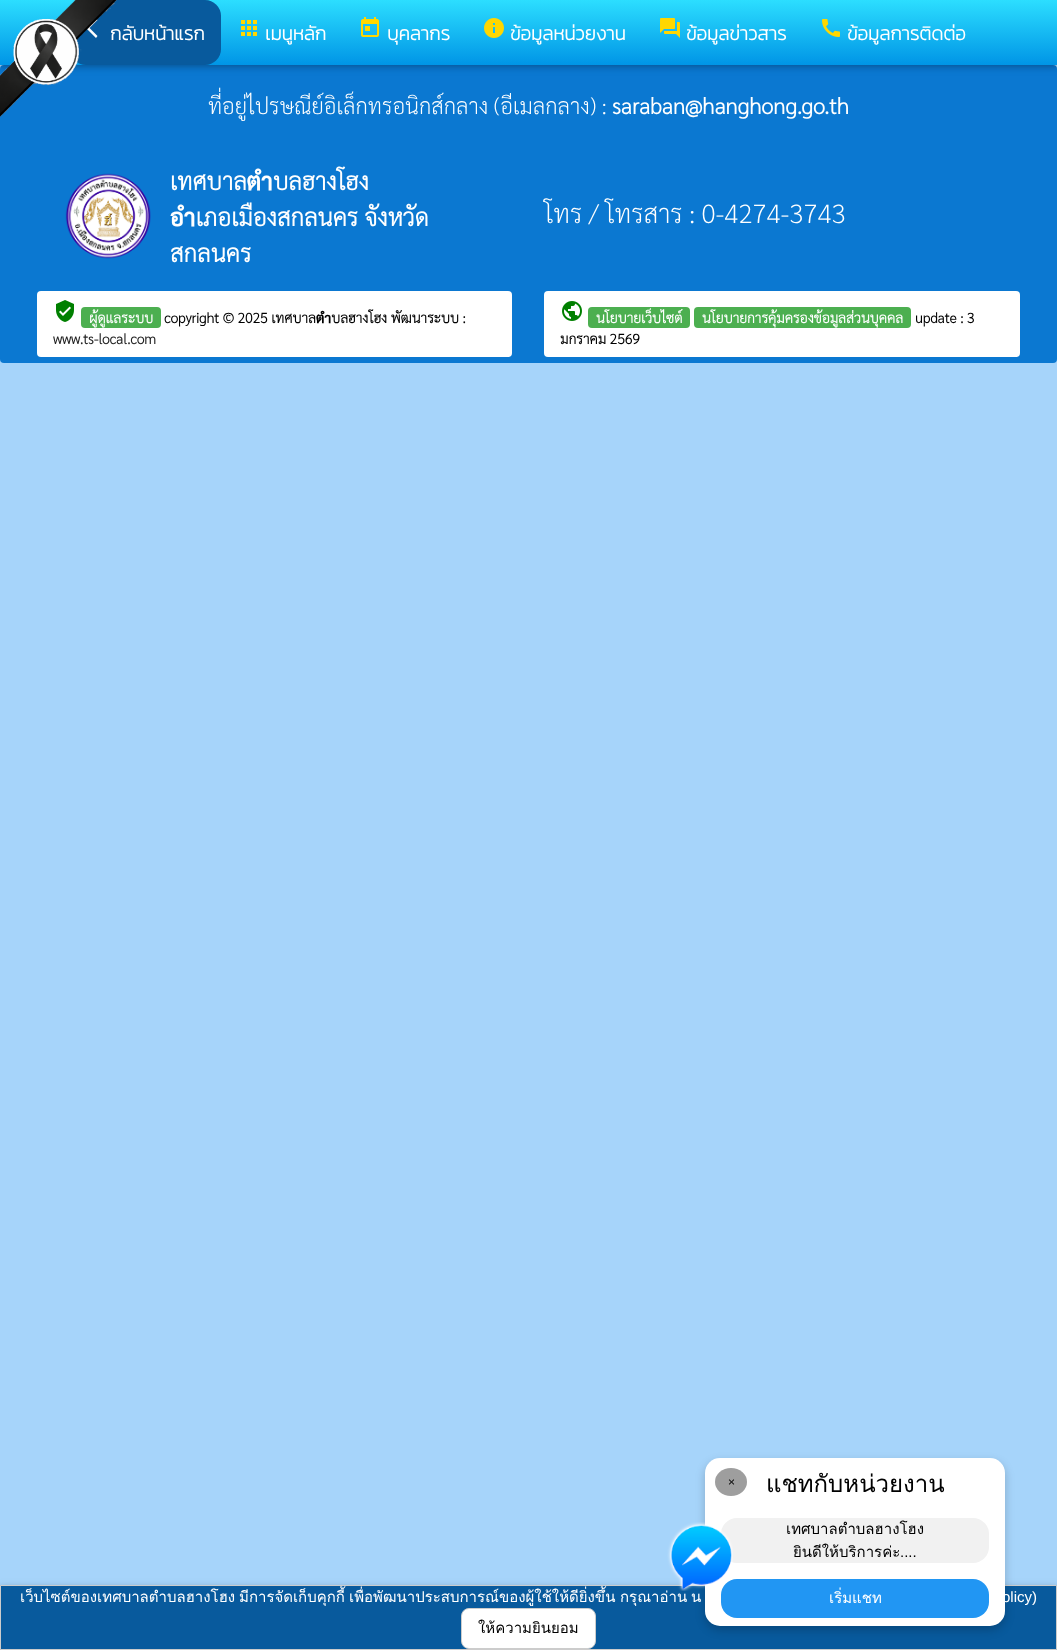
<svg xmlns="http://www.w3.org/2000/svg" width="1057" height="1650">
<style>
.a{font:bold 19px Kanit;fill:#fff}
.b{font:200 22px Sarabun;fill:#fff}
.c{font:bold 22px Sarabun;fill:#fff}
.d{font:bold 24px Sarabun;fill:#fff}
.e{font:200 26px Sarabun;fill:#fff}
.f{font:bold 14px Sarabun;fill:#fff}
.g{font:bold 14px Sarabun;fill:#000}
.h{font:bold 14px Sarabun;fill:#222}
.i{font:12px Liberation Sans;fill:#000}
.j{font:24px Loma;fill:#000}
.k{font:15px Loma;fill:#000}
.l{font:15px Liberation Sans;fill:#000}
.m{font:15px Loma;fill:#fff}
.n{font:15px Liberation Sans;fill:#fff}
</style>
<defs>
<linearGradient id="g1" gradientUnits="userSpaceOnUse" x1="529" y1="0" x2="529" y2="65"><stop offset="0" stop-color="#2cdeff"/><stop offset="1" stop-color="#0095e6"/></linearGradient>
</defs>
<rect width="100%" height="100%" fill="#a6d4fa"/>
<rect fill="#0b78d1" y="65" width="1057" height="298" rx="4"/>
<path fill="#0000001f" filter="blur(5px)" d="M0 2h1057v65H0z"/>
<path fill="#00000029" filter="blur(2.5px)" d="M0 2h1057v65H0z"/>
<path fill="url(#g1)" d="M0 0h1057v65H0z"/>
<rect fill="#085a9d" x="70" width="151" height="65" rx="16"/>
<path fill="#fff" d="M97.5 20l-8 8l8 8l-1.5 2l-10-10l10-10z"/>
<image href="2.png" x="241" y="20" width="16" height="16"/>
<image href="3.png" x="361" y="17" width="18" height="20"/>
<image href="4.png" x="484" y="18" width="20" height="20"/>
<image href="5.png" x="660" y="18" width="20" height="20"/>
<image href="6.png" x="822" y="19" width="18" height="18"/>
<image href="7.png" x="65" y="173" width="86" height="86"/>
<rect fill="#fff" x="37" y="291" width="475" height="66" rx="4"/>
<image href="8.png" x="56" y="300" width="18" height="22"/>
<rect fill="#4caf50" x="81" y="307" width="80" height="21" rx="4"/>
<rect fill="#fff" x="544" y="291" width="476" height="66" rx="4"/>
<image href="9.png" x="562" y="301" width="20" height="20"/>
<rect fill="#4caf50" x="588" y="307" width="102" height="21" rx="4"/>
<rect fill="#4caf50" x="694" y="307" width="217" height="21" rx="4"/>
<path fill="#0000001f" filter="blur(5px)" d="M0 1587h1057v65H0z"/>
<path fill="#00000029" filter="blur(2.5px)" d="M0 1587h1057v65H0z"/>
<path fill="#085a9d" stroke="#ccc" d="M0.5 1585.5h1056v64H0.5z"/>
<rect fill="#00000033" filter="blur(5px)" x="705" y="1462" width="300" height="168" rx="15"/>
<rect fill="#fff" x="705" y="1458" width="300" height="168" rx="15"/>
<ellipse fill="#9e9e9e" cx="731" cy="1482" rx="16" ry="14"/>
<rect fill="#f1f1f1" x="721" y="1518" width="268" height="45" rx="16"/>
<rect fill="#2196f3" x="721" y="1579" width="268" height="39" rx="16"/>
<rect fill="#fff" stroke="#ccc" x="461.5" y="1608.5" width="134" height="40" rx="7.5"/>
<text class="a" x="110" y="40">กลับหน้าแรก</text>
<image href="1.png" x="0" y="0" width="117" height="117"/>
<text class="a" x="265" y="40">เมนูหลัก</text>
<text class="a" x="387" y="40">บุคลากร</text>
<text class="a" x="510" y="40">ข้อมูลหน่วยงาน</text>
<text class="a" x="686" y="40">ข้อมูลข่าวสาร</text>
<text class="a" x="847" y="40">ข้อมูลการติดต่อ</text>
<text class="b" x="208" y="114">ที่อยู่ไปรษณีย์อิเล็กทรอนิกส์กลาง (อีเมลกลาง) :</text>
<text class="c" x="612" y="114">saraban@hanghong.go.th</text>
<text class="d" x="170" y="190">เทศบาลตำบลฮางโฮง</text>
<text class="d" x="170" y="226">อำเภอเมืองสกลนคร จังหวัด</text>
<text class="d" x="170" y="262">สกลนคร</text>
<text class="e" x="544" y="223">โทร / โทรสาร : 0-4274-3743</text>
<text class="f" x="89" y="323">ผู้ดูแลระบบ</text>
<text class="g" x="164" y="323">copyright © 2025 เทศบาลตำบลฮางโฮง พัฒนาระบบ :</text>
<text class="h" x="53" y="344">www.ts-local.com</text>
<text class="f" x="596" y="323">นโยบายเว็บไซต์</text>
<text class="f" x="702" y="323">นโยบายการคุ้มครองข้อมูลส่วนบุคคล</text>
<text class="g" x="915" y="323">update : 3</text>
<text class="g" x="560" y="344">มกราคม 2569</text>
<text class="i" x="728" y="1486">×</text>
<text class="j" x="766" y="1492">แชทกับหน่วยงาน</text>
<text class="k" x="786" y="1534">เทศบาลตำบลฮางโฮง</text>
<text class="k" x="793" y="1557">ยินดีให้บริการค่ะ</text>
<text class="l" x="900" y="1557">....</text>
<text class="m" x="829" y="1603">เริ่มแชท</text>
<text class="m" x="20" y="1602">เว็บไซต์ของเทศบาลตำบลฮางโฮง</text>
<text class="m" x="239" y="1602">มีการจัดเก็บคุกกี้</text>
<text class="m" x="349" y="1602">เพื่อพัฒนาประสบการณ์ของผู้ใช้ให้ดียิ่งขึ้น</text>
<text class="m" x="620" y="1602">กรุณาอ่าน</text>
<image href="10.png" x="667" y="1522" width="66" height="69"/>
<text class="m" x="691" y="1602">น</text>
<text class="n" x="1002" y="1602">olicy)</text>
<text class="k" x="478" y="1633">ให้ความยินยอม</text>
</svg>
